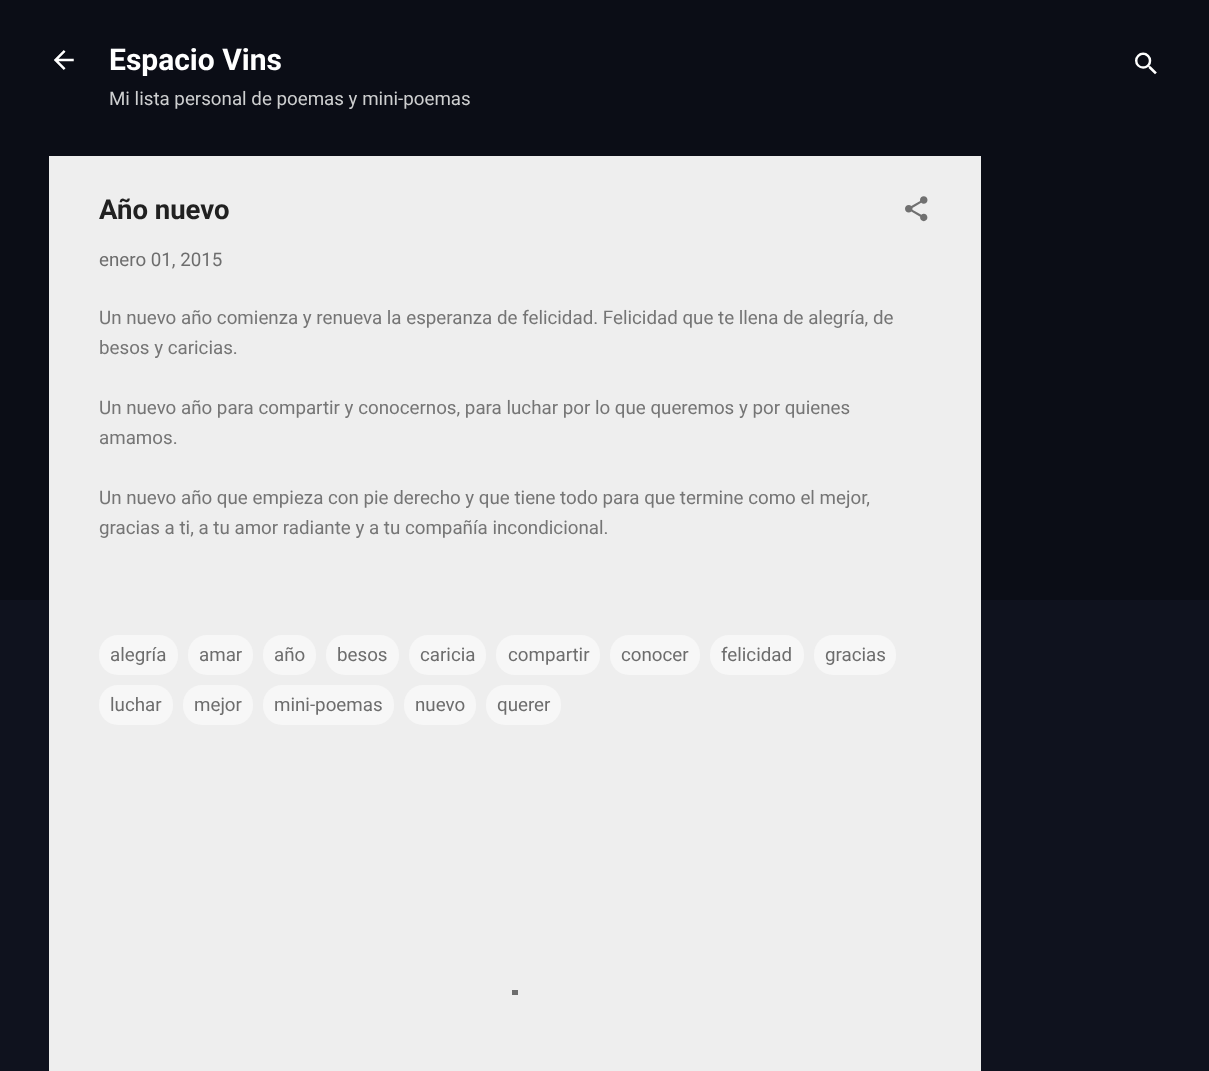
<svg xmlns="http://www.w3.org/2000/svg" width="1209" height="1071">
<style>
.a{font:bold 30px Roboto;fill:#fff}
.b{font:18.75px Roboto;fill:#cecfd0}
.c{font:bold 27.5px Roboto;fill:#212121}
.d{font:18.75px Roboto;fill:#6d6d6d}
.e{font:18.75px Roboto;fill:#757575}
</style>
<rect width="100%" height="100%" fill="#0f121e"/>
<path fill="#0b0d16" d="M0 0h1209v600H0z"/>
<image href="1.png" x="54" y="50" width="20" height="20"/>
<image href="2.png" x="1135" y="52" width="22" height="23"/>
<path fill="#eee" d="M49 156h932v915H49z"/>
<image href="3.png" x="905" y="196" width="23" height="26"/>
<rect fill="#f7f7f7" x="99" y="635" width="79" height="40" rx="19"/>
<rect fill="#f7f7f7" x="188" y="635" width="65" height="40" rx="19"/>
<rect fill="#f7f7f7" x="263" y="635" width="53" height="40" rx="19"/>
<rect fill="#f7f7f7" x="326" y="635" width="73" height="40" rx="19"/>
<rect fill="#f7f7f7" x="409" y="635" width="77" height="40" rx="19"/>
<rect fill="#f7f7f7" x="496" y="635" width="104" height="40" rx="19"/>
<rect fill="#f7f7f7" x="610" y="635" width="90" height="40" rx="19"/>
<rect fill="#f7f7f7" x="710" y="635" width="94" height="40" rx="19"/>
<rect fill="#f7f7f7" x="814" y="635" width="82" height="40" rx="19"/>
<rect fill="#f7f7f7" x="99" y="685" width="74" height="40" rx="19"/>
<rect fill="#f7f7f7" x="183" y="685" width="70" height="40" rx="19"/>
<rect fill="#f7f7f7" x="263" y="685" width="131" height="40" rx="19"/>
<rect fill="#f7f7f7" x="404" y="685" width="72" height="40" rx="19"/>
<rect fill="#f7f7f7" x="486" y="685" width="75" height="40" rx="19"/>
<path fill="#6d6d6d" d="M512 990h6v5H512z"/>
<text class="a" x="109" y="70">Espacio Vins</text>
<text class="b" x="109" y="105">Mi lista personal de poemas y mini-poemas</text>
<text class="c" x="99" y="219">Año nuevo</text>
<text class="d" x="99" y="266">enero 01, 2015</text>
<text class="e" x="99" y="324">Un nuevo año comienza y renueva la esperanza de felicidad. Felicidad que te llena de alegría, de</text>
<text class="e" x="99" y="354">besos y caricias.</text>
<text class="e" x="99" y="414">Un nuevo año para compartir y conocernos, para luchar por lo que queremos y por quienes</text>
<text class="e" x="99" y="444">amamos.</text>
<text class="e" x="99" y="504">Un nuevo año que empieza con pie derecho y que tiene todo para que termine como el mejor,</text>
<text class="e" x="99" y="534">gracias a ti, a tu amor radiante y a tu compañía incondicional.</text>
<text class="d" x="110" y="661">alegría</text>
<text class="d" x="199" y="661">amar</text>
<text class="d" x="274" y="661">año</text>
<text class="d" x="337" y="661">besos</text>
<text class="d" x="420" y="661">caricia</text>
<text class="d" x="508" y="661">compartir</text>
<text class="d" x="621" y="661">conocer</text>
<text class="d" x="721" y="661">felicidad</text>
<text class="d" x="825" y="661">gracias</text>
<text class="d" x="110" y="711">luchar</text>
<text class="d" x="194" y="711">mejor</text>
<text class="d" x="274" y="711">mini-poemas</text>
<text class="d" x="415" y="711">nuevo</text>
<text class="d" x="497" y="711">querer</text>
</svg>
